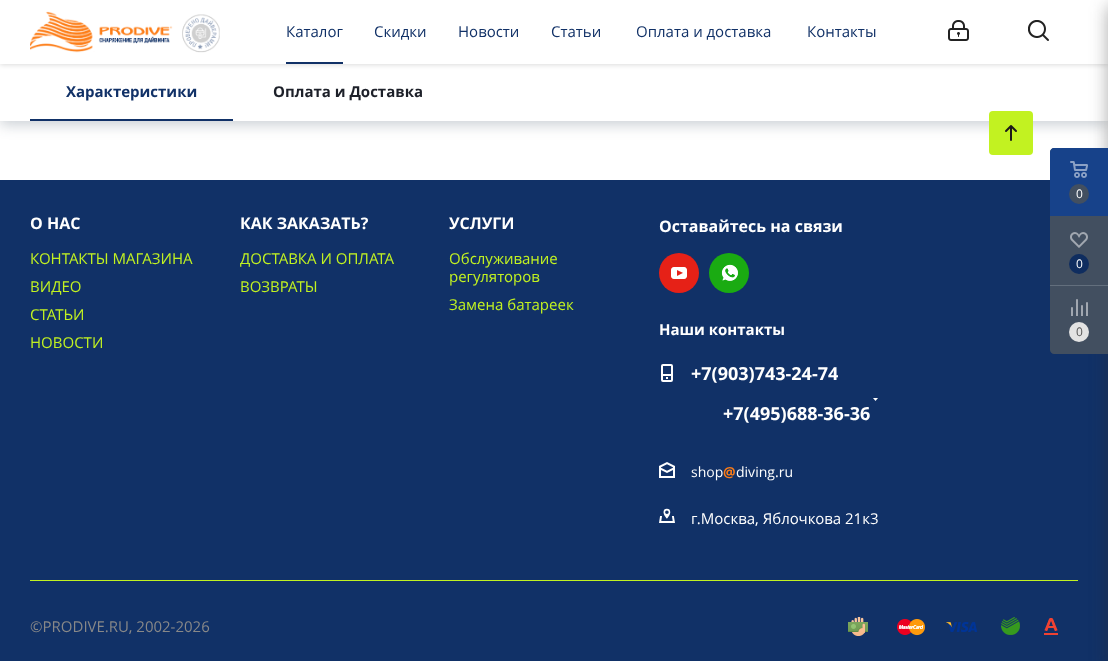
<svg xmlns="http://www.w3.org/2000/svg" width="1108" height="661">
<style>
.a{font:15px Open Sans;fill:#113167}
.b{font:bold 15px Open Sans;fill:#113167}
.c{font:bold 15px Open Sans;fill:#1d2029}
.d{font:bold 16px Open Sans;fill:#fff}
.e{font:15px Open Sans;fill:#c2f221}
.f{font:bold 15px Open Sans;fill:#fff}
.g{font:bold 18px Open Sans;fill:#fff}
.h{font:14px Open Sans;fill:#fff}
.i{font:bold 14px Open Sans;fill:#fd7d17}
.j{font:15px Open Sans;fill:#fff}
.k{font:15px Open Sans;fill:#888}
.l{font:12px Open Sans;fill:#fff}
.m{font:12px Open Sans;fill:#555}
</style>
<rect width="100%" height="100%" fill="#fff"/>
<path fill="#20364a3b" filter="blur(7px)" d="M0 68h1108v57H0z"/>
<path fill="#fff" d="M0 64h1108v57H0z"/>
<path fill="#00000024" filter="blur(2.5px)" d="M0 1h1108v64H0z"/>
<path fill="#fff" d="M0 0h1108v64H0z"/>
<image href="1.png" x="30" y="11" width="190" height="42"/>
<path fill="#113167" d="M286 62h57v2H286z"/>
<image href="2.png" x="948" y="20" width="21" height="21"/>
<path fill="#222" d="M1028 20h21v21H1028z"/>
<image href="3.png" x="1028" y="20" width="21" height="21"/>
<path fill="#113167" d="M30 119h203v2H30z"/>
<rect fill="#c2f221" x="989" y="111" width="44" height="44" rx="4"/>
<path fill="none" stroke="#1d1a1a" stroke-width="2" stroke-linecap="round" stroke-linejoin="round" d="M1011 126v14m-5-9l5-5l5 5"/>
<path fill="#113167" d="M0 180h1108v481H0z"/>
<image href="4.png" x="659" y="253" width="40" height="40"/>
<image href="5.png" x="709" y="253" width="40" height="40"/>
<image href="6.png" x="661" y="364" width="12" height="18"/>
<image href="7.png" x="873" y="398" width="5" height="3"/>
<image href="8.png" x="659" y="462" width="16" height="16"/>
<image href="9.png" x="659" y="508" width="16" height="15"/>
<path fill="#c2f221" d="M30 580h1048v1H30z"/>
<image href="10.png" x="848" y="617" width="20" height="19"/>
<image href="11.png" x="897" y="619" width="28" height="17"/>
<image href="12.png" x="946" y="622" width="31" height="10"/>
<image href="13.png" x="1001" y="617" width="19" height="18"/>
<image href="14.png" x="1044" y="618" width="14" height="17"/>
<rect fill="#2c2c2c66" filter="blur(9px)" x="1108" y="6" width="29" height="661" rx="2"/>
<path fill="#424f60" d="M1054 148h54v206h-54c-2 0-4-2-4-4v-198c0-2 2-4 4-4z"/>
<path fill="#17428a" d="M1054 148h54v68h-58v-64c0-2 2-4 4-4z"/>
<image href="15.png" x="1070" y="161" width="18" height="17"/>
<circle fill="#424f60" cx="1079" cy="194" r="10"/>
<image href="16.png" x="1070" y="232" width="18" height="16"/>
<circle fill="#0f2d5f" cx="1079" cy="264" r="10"/>
<path fill="#636f7d" d="M1050 285h58v1H1050z"/>
<image href="17.png" x="1071" y="299" width="17" height="17"/>
<circle fill="#e3e3e3" cx="1079" cy="332" r="10"/>
<text class="a" x="286" y="37">Каталог</text>
<text class="a" x="374" y="37">Скидки</text>
<text class="a" x="458" y="37">Новости</text>
<text class="a" x="551" y="37">Статьи</text>
<text class="a" x="636" y="37">Оплата и доставка</text>
<text class="a" x="807" y="37">Контакты</text>
<text class="b" x="66" y="97">Характеристики</text>
<text class="c" x="273" y="97">Оплата и Доставка</text>
<text class="d" x="30" y="229">О НАС</text>
<text class="e" x="30" y="264">КОНТАКТЫ МАГАЗИНА</text>
<text class="e" x="30" y="292">ВИДЕО</text>
<text class="e" x="30" y="320">СТАТЬИ</text>
<text class="e" x="30" y="348">НОВОСТИ</text>
<text class="d" x="240" y="229">КАК ЗАКАЗАТЬ?</text>
<text class="e" x="240" y="264">ДОСТАВКА И ОПЛАТА</text>
<text class="e" x="240" y="292">ВОЗВРАТЫ</text>
<text class="d" x="449" y="229">УСЛУГИ</text>
<text class="e" x="449" y="264">Обслуживание</text>
<text class="e" x="449" y="282">регуляторов</text>
<text class="e" x="449" y="310">Замена батареек</text>
<text class="d" x="659" y="232">Оставайтесь на связи</text>
<text class="f" x="659" y="335">Наши контакты</text>
<text class="g" x="691" y="380">+7(903)743-24-74</text>
<text class="g" x="723" y="420">+7(495)688-36-36</text>
<text class="h" x="691" y="477">shop</text>
<text class="i" x="723" y="477">@</text>
<text class="h" x="736" y="477">diving.ru</text>
<text class="j" x="691" y="524">г.Москва, Яблочкова 21к3</text>
<text class="k" x="30" y="632">©PRODIVE.RU, 2002-2026</text>
<text class="l" x="1076" y="198">0</text>
<text class="l" x="1076" y="268">0</text>
<text class="m" x="1076" y="336">0</text>
</svg>
